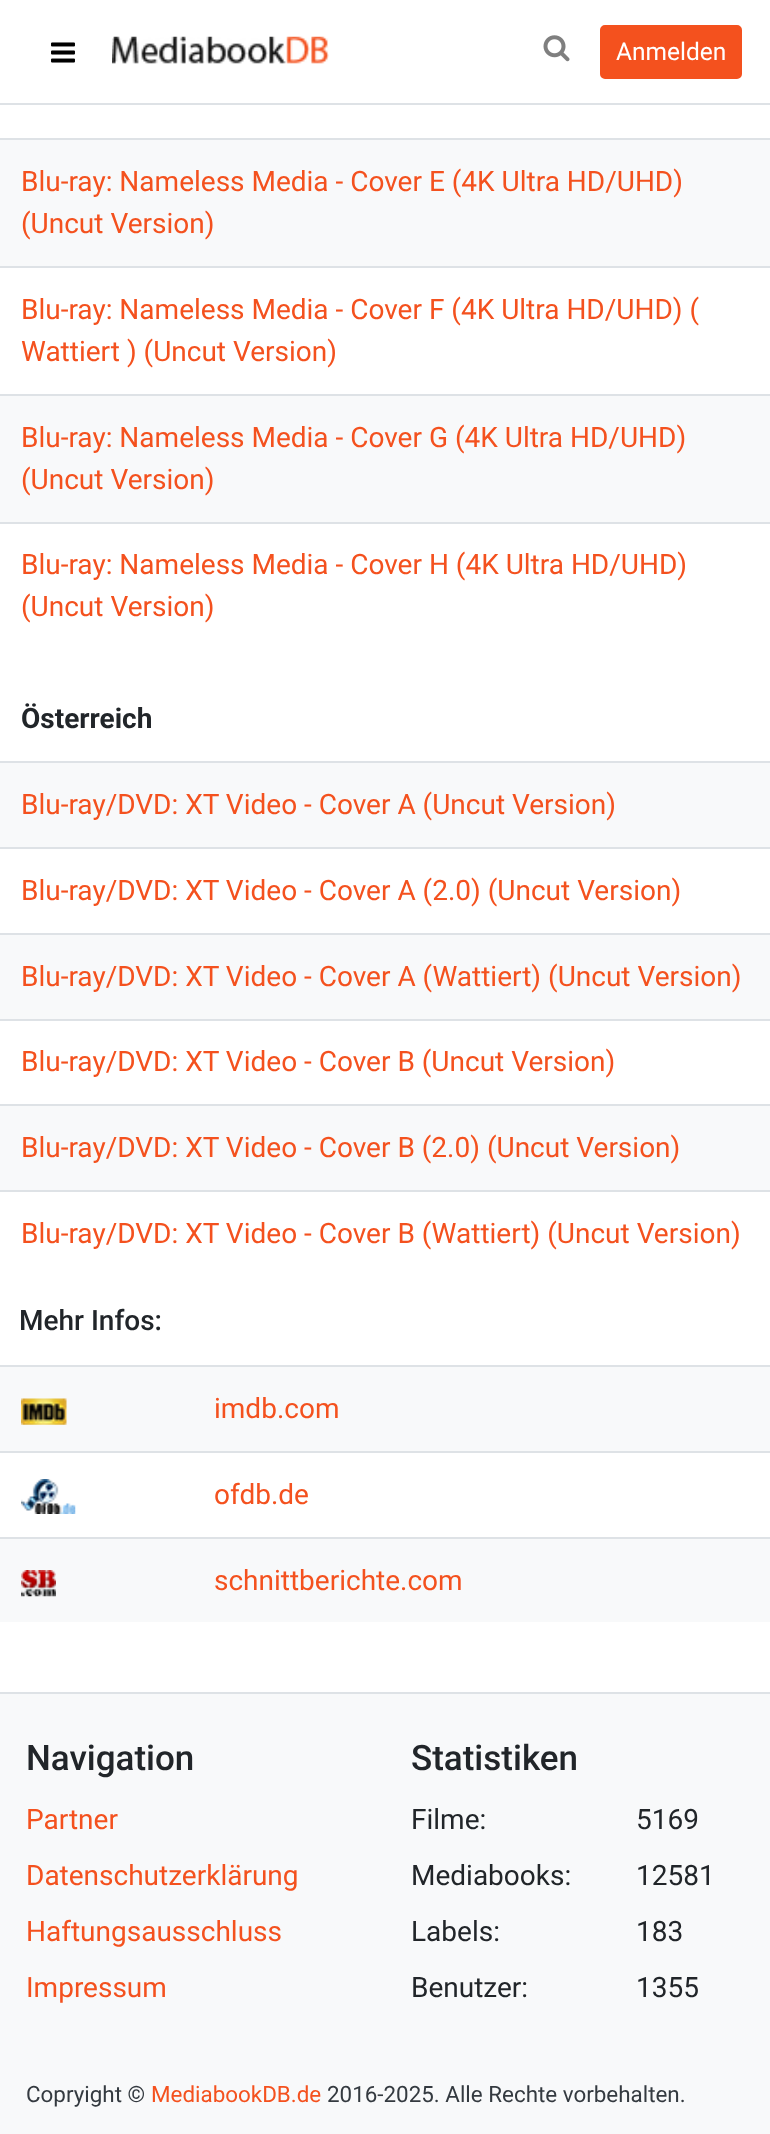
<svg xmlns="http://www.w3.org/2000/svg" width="770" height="2134">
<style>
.a{font:24.5px Roboto;fill:#fff}
.b{font:28px Roboto;fill:#f4511e}
.c{font:bold 28px Roboto;fill:#212529}
.d{font:500 28px Roboto;fill:#212529}
.e{font:500 35px Roboto;fill:#212529}
.f{font:28px Roboto;fill:#212529}
.g{font:22.4px Roboto;fill:#343a40}
.h{font:22.4px Roboto;fill:#f4511e}
</style>
<rect width="100%" height="100%" fill="#fff"/>
<path fill="#dee2e6" d="M0 103h770v2H0z"/>
<image href="1.png" x="51" y="42" width="24" height="21"/>
<image href="2.png" x="112" y="36" width="217" height="28"/>
<image href="3.png" x="543" y="35" width="27" height="27"/>
<rect fill="#f4511e" stroke="#f4511e" stroke-width="2" x="601" y="26" width="140" height="52" rx="4"/>
<path fill="#f8f9fa" d="M0 140h770v126H0z"/>
<path fill="#dee2e6" d="M0 138h770v2H0z"/>
<path fill="#dee2e6" d="M0 266h770v2H0z"/>
<path fill="#f8f9fa" d="M0 396h770v126H0z"/>
<path fill="#dee2e6" d="M0 394h770v2H0z"/>
<path fill="#dee2e6" d="M0 522h770v2H0z"/>
<path fill="#f8f9fa" d="M0 763h770v84H0z"/>
<path fill="#dee2e6" d="M0 761h770v2H0z"/>
<path fill="#dee2e6" d="M0 847h770v2H0z"/>
<path fill="#f8f9fa" d="M0 935h770v84H0z"/>
<path fill="#dee2e6" d="M0 933h770v2H0z"/>
<path fill="#dee2e6" d="M0 1019h770v2H0z"/>
<path fill="#f8f9fa" d="M0 1106h770v84H0z"/>
<path fill="#dee2e6" d="M0 1104h770v2H0z"/>
<path fill="#dee2e6" d="M0 1190h770v2H0z"/>
<path fill="#f8f9fa" d="M0 1367h770v84H0z"/>
<image href="4.png" x="21" y="1398" width="46" height="27"/>
<path fill="#dee2e6" d="M0 1365h770v2H0z"/>
<image href="5.png" x="21" y="1479" width="55" height="35"/>
<path fill="#dee2e6" d="M0 1451h770v2H0z"/>
<path fill="#f8f9fa" d="M0 1539h770v83H0z"/>
<image href="6.png" x="21" y="1570" width="35" height="27"/>
<path fill="#dee2e6" d="M0 1537h770v2H0z"/>
<path fill="#f8f9fa" d="M0 1694h770v440H0z"/>
<path fill="#dee2e6" d="M0 1692h770v2H0z"/>
<text class="a" x="616" y="60">Anmelden</text>
<text class="b" x="21" y="191">Blu-ray: Nameless Media - Cover E (4K Ultra HD/UHD)</text>
<text class="b" x="21" y="233">(Uncut Version)</text>
<text class="b" x="21" y="319">Blu-ray: Nameless Media - Cover F (4K Ultra HD/UHD) (</text>
<text class="b" x="21" y="361">Wattiert ) (Uncut Version)</text>
<text class="b" x="21" y="447">Blu-ray: Nameless Media - Cover G (4K Ultra HD/UHD)</text>
<text class="b" x="21" y="489">(Uncut Version)</text>
<text class="b" x="21" y="574">Blu-ray: Nameless Media - Cover H (4K Ultra HD/UHD)</text>
<text class="b" x="21" y="616">(Uncut Version)</text>
<text class="c" x="21" y="728">Österreich</text>
<text class="b" x="21" y="814">Blu-ray/DVD: XT Video - Cover A (Uncut Version)</text>
<text class="b" x="21" y="900">Blu-ray/DVD: XT Video - Cover A (2.0) (Uncut Version)</text>
<text class="b" x="21" y="986">Blu-ray/DVD: XT Video - Cover A (Wattiert) (Uncut Version)</text>
<text class="b" x="21" y="1071">Blu-ray/DVD: XT Video - Cover B (Uncut Version)</text>
<text class="b" x="21" y="1157">Blu-ray/DVD: XT Video - Cover B (2.0) (Uncut Version)</text>
<text class="b" x="21" y="1243">Blu-ray/DVD: XT Video - Cover B (Wattiert) (Uncut Version)</text>
<text class="d" x="19" y="1330">Mehr Infos:</text>
<text class="b" x="214" y="1418">imdb.com</text>
<text class="b" x="214" y="1504">ofdb.de</text>
<text class="b" x="214" y="1590">schnittberichte.com</text>
<text class="e" x="26" y="1770">Navigation</text>
<text class="b" x="26" y="1829">Partner</text>
<text class="b" x="26" y="1885">Datenschutzerklärung</text>
<text class="b" x="26" y="1941">Haftungsausschluss</text>
<text class="b" x="26" y="1997">Impressum</text>
<text class="e" x="411" y="1770">Statistiken</text>
<text class="f" x="411" y="1829">Filme:</text>
<text class="f" x="411" y="1885">Mediabooks:</text>
<text class="f" x="411" y="1941">Labels:</text>
<text class="f" x="411" y="1997">Benutzer:</text>
<text class="f" x="636" y="1829">5169</text>
<text class="f" x="636" y="1885">12581</text>
<text class="f" x="636" y="1941">183</text>
<text class="f" x="636" y="1997">1355</text>
<text class="g" x="26" y="2102">Copryight ©</text>
<text class="h" x="151" y="2102">MediabookDB.de</text>
<text class="g" x="327" y="2102">2016-2025. Alle Rechte vorbehalten.</text>
</svg>
